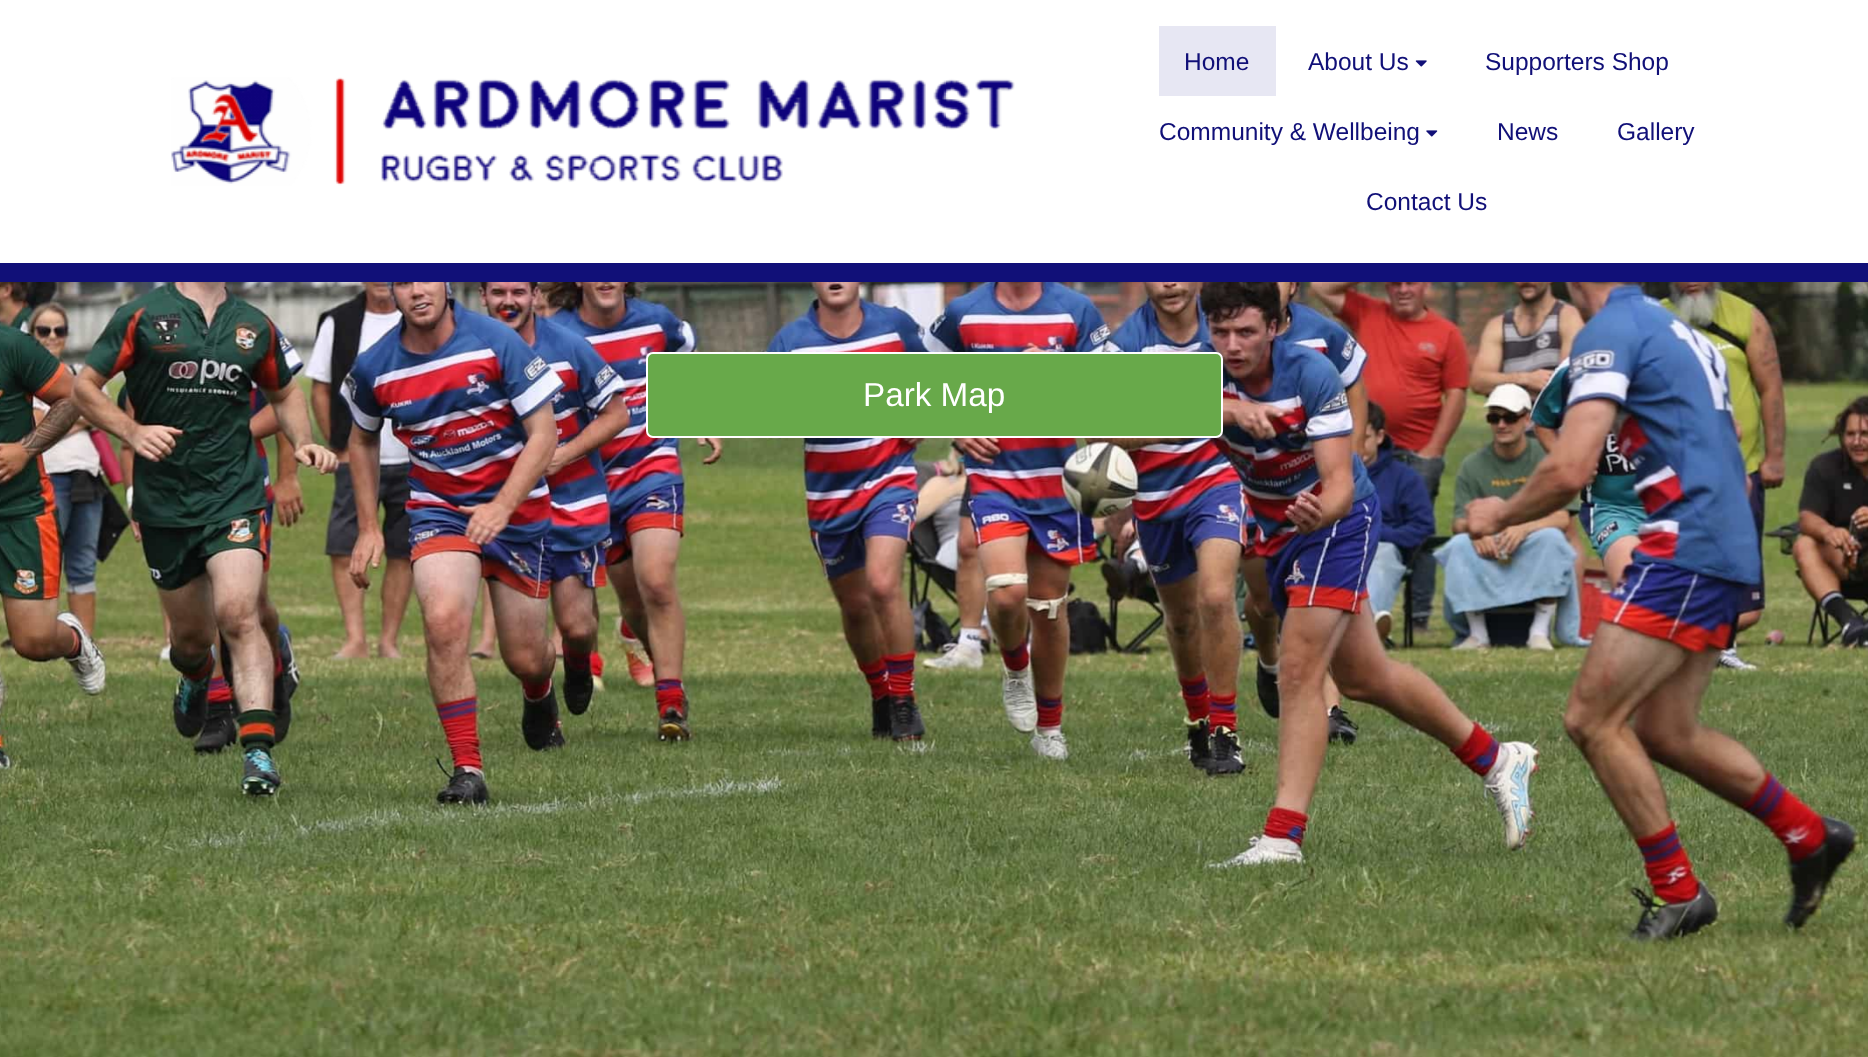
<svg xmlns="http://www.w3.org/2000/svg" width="1868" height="1057">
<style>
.a{font:24.5px Liberation Sans;fill:#111078}
.b{font:33.25px Liberation Sans;fill:#fff}
</style>
<rect width="100%" height="100%" fill="#fff"/>
<image href="1.png" x="171" y="77" width="844" height="109"/>
<path fill="#e7e7f3" d="M1159 26h117v70H1159z"/>
<image href="2.png" x="1415" y="60" width="12" height="7"/>
<image href="3.png" x="1426" y="130" width="12" height="7"/>
<path fill="#111078" d="M0 263h1868v19H0z"/>
<image href="4.png" x="0" y="282" width="1868" height="775"/>
<rect fill="#68a94a" stroke="#fff" stroke-width="2" x="647" y="353" width="575" height="84" rx="6"/>
<text class="a" x="1184" y="70">Home</text>
<text class="a" x="1308" y="70">About Us</text>
<text class="a" x="1485" y="70">Supporters Shop</text>
<text class="a" x="1159" y="140">Community &amp; Wellbeing</text>
<text class="a" x="1497" y="140">News</text>
<text class="a" x="1617" y="140">Gallery</text>
<text class="a" x="1366" y="210">Contact Us</text>
<text class="b" x="863" y="406">Park Map</text>
</svg>
